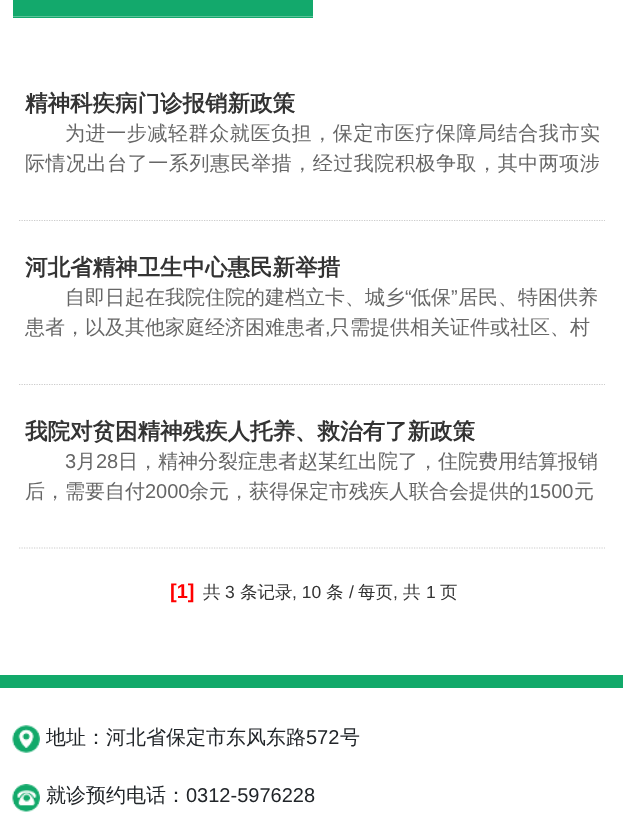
<svg xmlns="http://www.w3.org/2000/svg" width="623" height="838">
<style>
.a{font:bold 22.5px WenQuanYi Zen Hei;fill:#333}
.b{font:500 20px WenQuanYi Zen Hei;letter-spacing:0.6px;fill:#666}
.c{font:500 20px WenQuanYi Zen Hei;letter-spacing:0.55px;fill:#666}
.d{font:500 20px WenQuanYi Zen Hei;fill:#666}
.e{font:20px Liberation Sans;fill:#666}
.f{font:bold 20px Liberation Sans;fill:#f00}
.g{font:500 17.5px WenQuanYi Zen Hei;fill:#333}
.h{font:17.5px Liberation Sans;fill:#333}
.i{font:500 20px WenQuanYi Zen Hei;fill:#212529}
.j{font:20px Liberation Sans;fill:#212529}
</style>
<rect width="100%" height="100%" fill="#fff"/>
<path fill="#13a96c" d="M13 0h300v18H13z"/>
<path fill="#5ac398" d="M13 16h300v1H13z"/>
<path fill="none" stroke="#ccc" stroke-width="1.2" stroke-dasharray="1.25 1.25" d="M19 220.5h586"/>
<path fill="none" stroke="#ccc" stroke-width="1.2" stroke-dasharray="1.25 1.25" d="M19 384.5h586"/>
<path fill="none" stroke="#ccc" stroke-width="1.2" stroke-dasharray="1.25 1.25" d="M19 548h586"/>
<path fill="#12a96a" d="M0 675h623v13H0z"/>
<image href="1.png" x="12" y="725" width="28" height="28"/>
<image href="2.png" x="12" y="784" width="28" height="28"/>
<text class="a" x="25" y="111">精神科疾病门诊报销新政策</text>
<text class="b" x="65" y="140">为进一步减轻群众就医负担，保定市医疗保障局结合我市实</text>
<text class="c" x="25" y="170">际情况出台了一系列惠民举措，经过我院积极争取，其中两项涉</text>
<text class="a" x="25" y="275">河北省精神卫生中心惠民新举措</text>
<text class="d" x="65" y="304">自即日起在我院住院的建档立卡、城乡</text>
<text class="e" x="405" y="304">“</text>
<text class="d" x="411" y="304">低保</text>
<text class="e" x="451" y="304">”</text>
<text class="d" x="458" y="304">居民、特困供养</text>
<text class="d" x="25" y="334">患者，以及其他家庭经济困难患者</text>
<text class="e" x="325" y="334">,</text>
<text class="d" x="330" y="334">只需提供相关证件或社区、村</text>
<text class="a" x="25" y="439">我院对贫困精神残疾人托养、救治有了新政策</text>
<text class="e" x="65" y="468">3</text>
<text class="d" x="76" y="468">月</text>
<text class="e" x="96" y="468">28</text>
<text class="d" x="118" y="468">日，精神分裂症患者赵某红出院了，住院费用结算报销</text>
<text class="d" x="25" y="498">后，需要自付</text>
<text class="e" x="145" y="498">2000</text>
<text class="d" x="189" y="498">余元，获得保定市残疾人联合会提供的</text>
<text class="e" x="529" y="498">1500</text>
<text class="d" x="574" y="498">元</text>
<text class="f" x="170" y="598">[1]</text>
<text class="g" x="203" y="598">共</text>
<text class="h" x="225" y="598">3</text>
<text class="g" x="240" y="598">条记录</text>
<text class="h" x="292" y="598">, 10</text>
<text class="g" x="326" y="598">条</text>
<text class="h" x="349" y="598">/</text>
<text class="g" x="358" y="598">每页</text>
<text class="g" x="403" y="598">共</text>
<text class="h" x="426" y="598">1</text>
<text class="g" x="440" y="598">页</text>
<text class="h" x="393" y="598">,</text>
<text class="i" x="46" y="744">地址：河北省保定市东风东路</text>
<text class="j" x="306" y="744">572</text>
<text class="i" x="340" y="744">号</text>
<text class="i" x="46" y="802">就诊预约电话：</text>
<text class="j" x="186" y="802">0312-5976228</text>
</svg>
